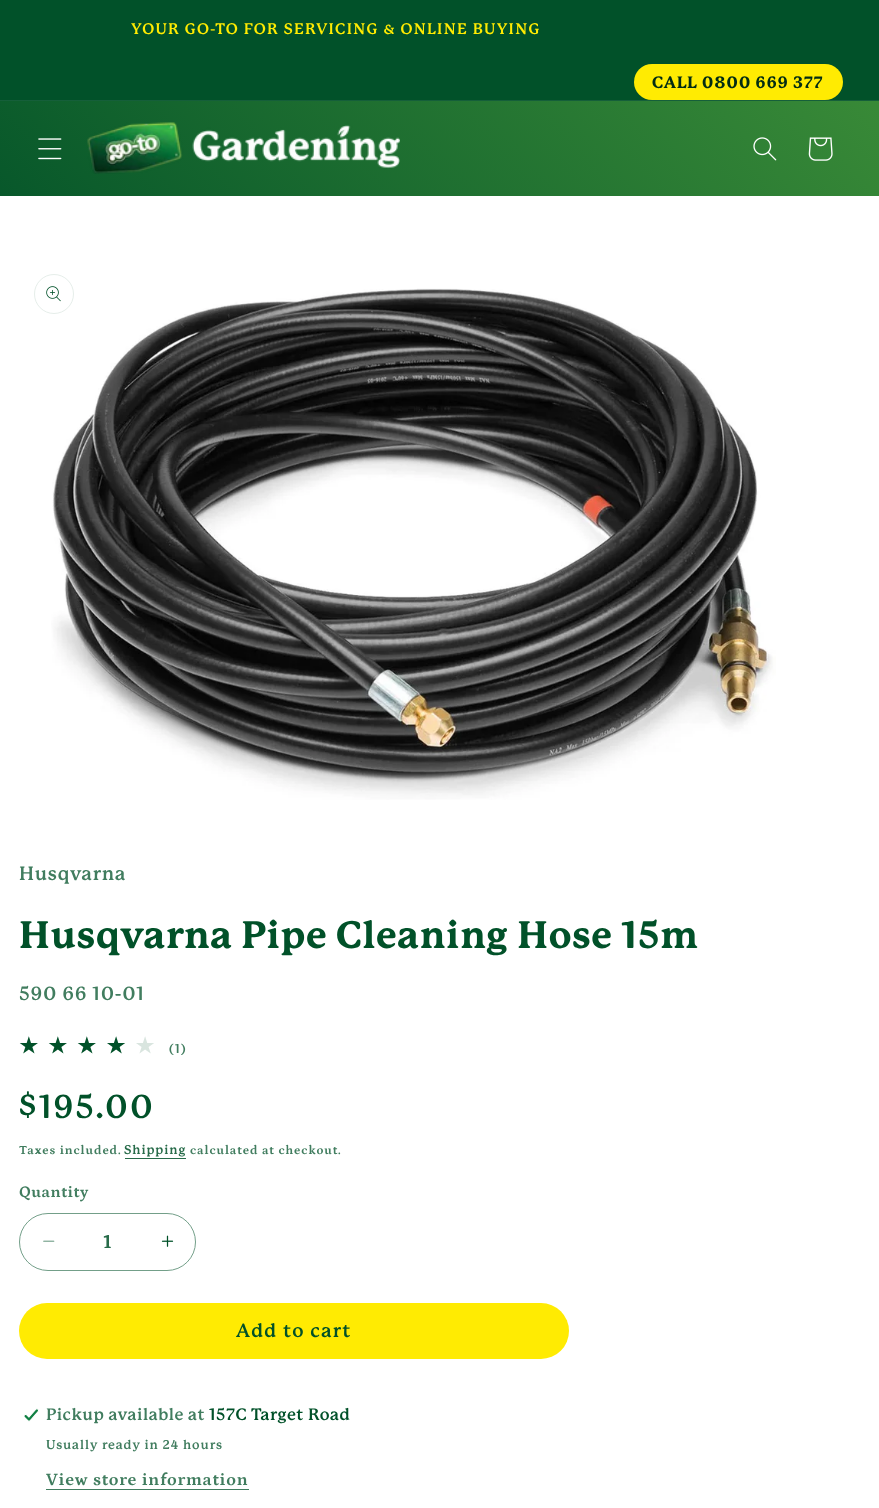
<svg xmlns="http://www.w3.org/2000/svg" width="879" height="1508">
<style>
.a{font:bold 15px 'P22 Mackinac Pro';letter-spacing:1.25px;fill:#ffeb02}
.b{font:800 16.25px 'P22 Mackinac Pro';letter-spacing:0.75px;fill:#022c14}
.c{font:bold 18.75px 'P22 Mackinac Pro';letter-spacing:0.75px;fill:#417d5f}
.d{font:800 37.5px 'P22 Mackinac Pro';letter-spacing:0.75px;fill:#015129}
.e{font:bold 21.25px DejaVu Sans;letter-spacing:10px;fill:url(#g1)}
.f{font:bold 12.5px 'P22 Mackinac Pro';letter-spacing:0.9px;fill:#417d5f}
.g{font:bold 32.5px 'P22 Mackinac Pro';letter-spacing:1.5px;fill:#015129}
.h{font:bold 12.5px Petrona;letter-spacing:0.9px;fill:#417d5f}
.i{font:bold 12.5px 'P22 Mackinac Pro';letter-spacing:0.9px;fill:#276b49}
.j{font:bold 16.25px Petrona;letter-spacing:0.5px;fill:#417d5f}
.k{font:bold 20px Petrona;fill:#276b49}
.l{font:bold 18.75px 'P22 Mackinac Pro';letter-spacing:1.25px;fill:#015129}
.m{font:bold 16.25px 'P22 Mackinac Pro';letter-spacing:0.5px;fill:#417d5f}
.n{font:bold 16.25px 'P22 Mackinac Pro';letter-spacing:0.5px;fill:#015129}
.o{font:bold 17.5px Petrona;letter-spacing:0.75px;fill:#417d5f}
</style>
<defs>
<linearGradient id="g1" gradientUnits="userSpaceOnUse" x1="19" y1="1045" x2="164" y2="1045"><stop offset="0.8" stop-color="#015129"/><stop offset="0.8" stop-color="#d9e5df"/></linearGradient>
<linearGradient id="g2" gradientUnits="userSpaceOnUse" x1="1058" y1="198" x2="-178" y2="1311"><stop offset="0.01" stop-color="#3c8d38"/><stop offset="0.53" stop-color="#015129"/></linearGradient>
</defs>
<rect width="100%" height="100%" fill="#fff"/>
<path fill="#015129" d="M0 0h879v100H0z"/>
<path fill="#155f3a" d="M0 100h879v1H0z"/>
<rect fill="#ffeb02" x="634" y="64" width="209" height="36" rx="18"/>
<path fill="url(#g2)" d="M0 101h879v95H0z"/>
<image href="1.png" x="38" y="138" width="24" height="22"/>
<image href="2.png" x="87" y="122" width="313" height="52"/>
<image href="3.png" x="753" y="137" width="24" height="24"/>
<image href="4.png" x="808" y="137" width="25" height="24"/>
<image href="6.png" x="51" y="288" width="725" height="512"/>
<circle fill="none" stroke="#e6eeea" cx="54" cy="294" r="19.5"/>
<image href="5.png" x="46" y="286" width="15" height="16"/>
<path fill="#276b49" d="M125 1158h61v1H125z"/>
<image href="7.png" x="43" y="1240" width="12" height="2"/>
<image href="8.png" x="161" y="1235" width="13" height="12"/>
<rect fill="none" stroke="#739f89" x="19.5" y="1213.5" width="176" height="57" rx="28.5"/>
<rect fill="#ffeb02" x="19" y="1303" width="550" height="56" rx="28"/>
<image href="9.png" x="24" y="1408" width="15" height="14"/>
<path fill="#417d5f" d="M46 1489h203v1H46z"/>
<text class="a" x="131" y="34">YOUR GO-TO FOR SERVICING &amp; ONLINE BUYING</text>
<text class="b" x="652" y="88">CALL 0800 669 377</text>
<text class="c" x="19" y="880">Husqvarna</text>
<text class="d" x="19" y="948">Husqvarna Pipe Cleaning Hose 15m</text>
<text class="c" x="19" y="1000">590 66 10-01</text>
<text class="e" x="19" y="1053">★★★★★</text>
<text class="f" x="169" y="1053">(1)</text>
<text class="g" x="19" y="1118">$195.00</text>
<text class="h" x="19" y="1154">Taxes included.</text>
<text class="i" x="124" y="1154">Shipping</text>
<text class="h" x="190" y="1154">calculated at checkout.</text>
<text class="j" x="19" y="1197">Quantity</text>
<text class="k" x="103" y="1248">1</text>
<text class="l" x="236" y="1337">Add to cart</text>
<text class="m" x="46" y="1420">Pickup available at</text>
<text class="n" x="209" y="1420">157C Target Road</text>
<text class="f" x="46" y="1449">Usually ready in 24 hours</text>
<text class="o" x="46" y="1485">View store information</text>
</svg>
